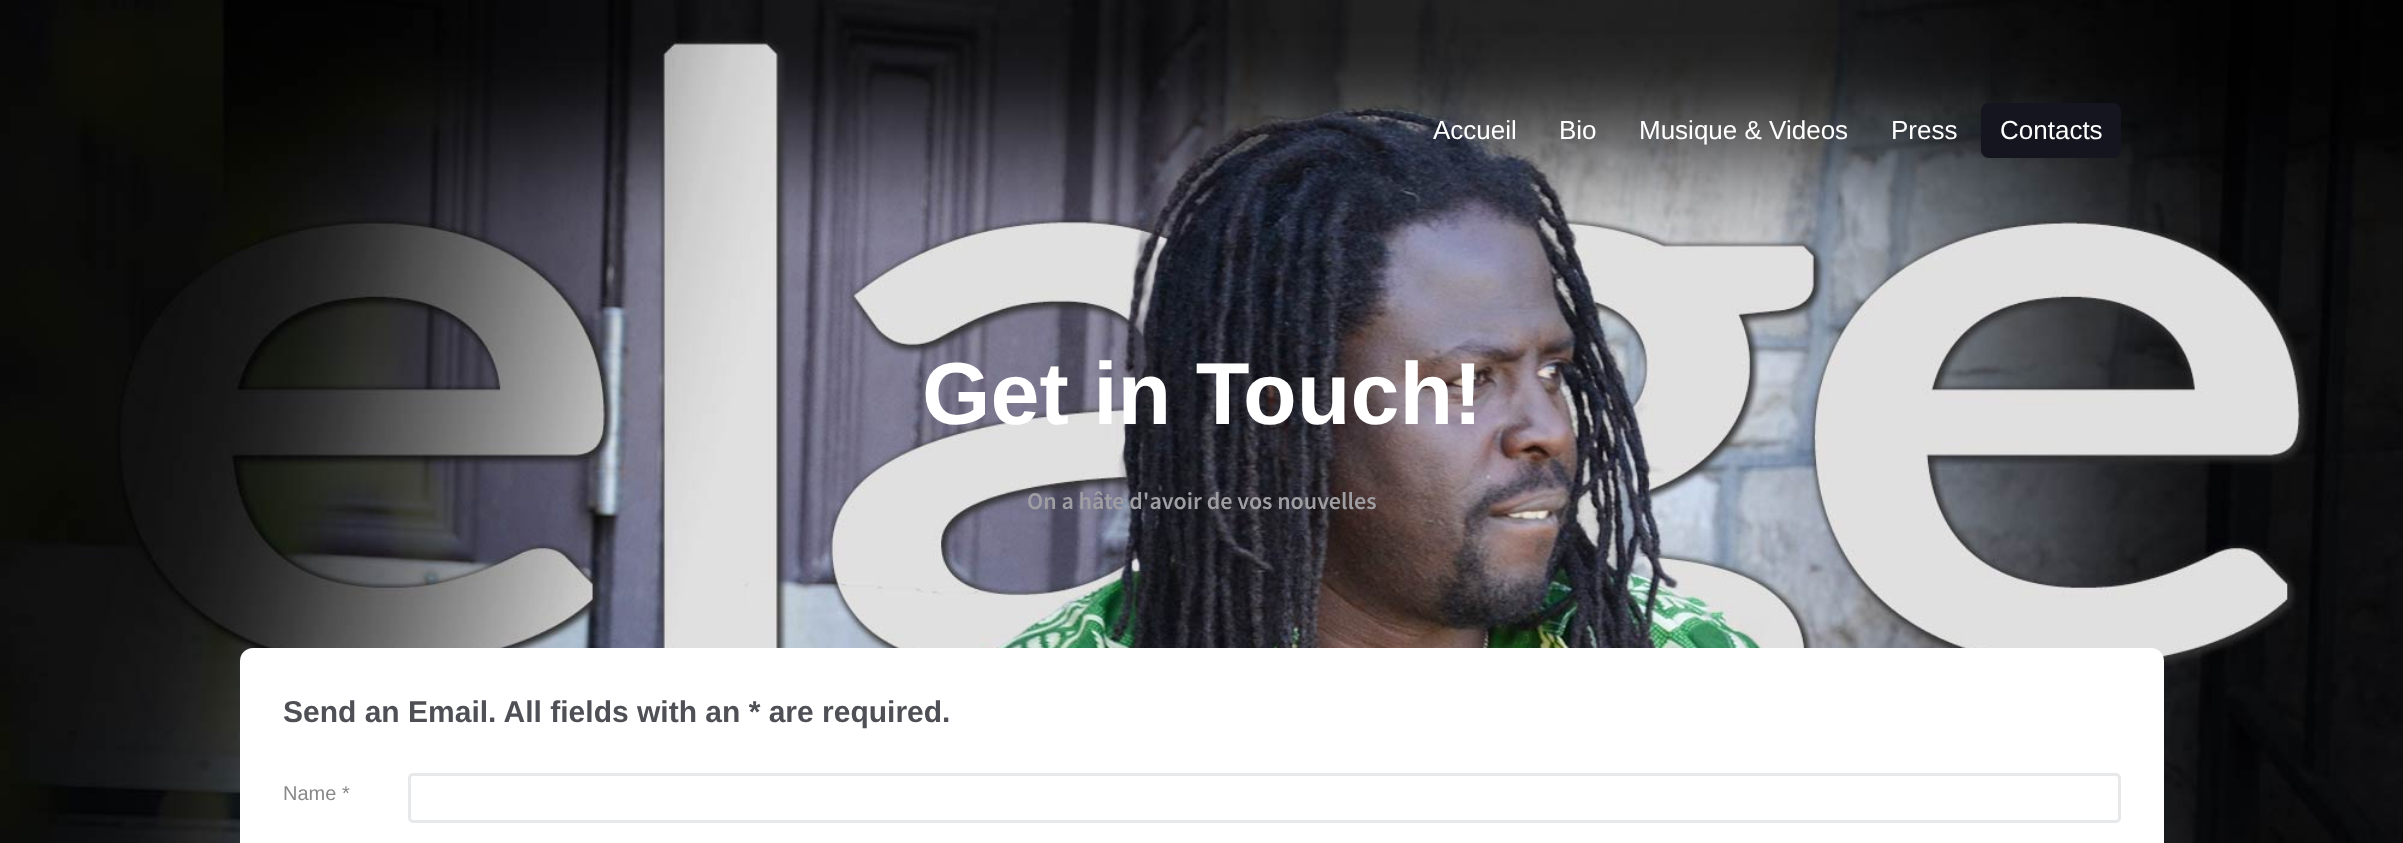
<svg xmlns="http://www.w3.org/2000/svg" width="2403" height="843">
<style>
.a{font:26px Liberation Sans;fill:#fff}
.b{font:bold 88px Liberation Sans;fill:#fff}
.c{font:600 24px Source Sans Pro;fill:#9f9ea3}
.d{font:bold 30px Liberation Sans;fill:#4f5056}
.e{font:20px Liberation Sans;fill:#888}
</style>
<rect width="100%" height="100%" fill="#fff"/>
<image href="1.png" x="0" y="0" width="2403" height="843"/>
<rect fill="#14151e" x="1981" y="103" width="140" height="55" rx="8"/>
<rect fill="#fff" x="240" y="648" width="1924" height="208" rx="13"/>
<rect fill="none" stroke="#e7e8ea" stroke-width="3" x="409.5" y="774.5" width="1710" height="47" rx="3.5"/>
<text class="a" x="1433" y="139">Accueil</text>
<text class="a" x="1559" y="139">Bio</text>
<text class="a" x="1639" y="139">Musique &amp; Videos</text>
<text class="a" x="1891" y="139">Press</text>
<text class="a" x="2000" y="139">Contacts</text>
<text class="b" x="922" y="424">Get in Touch!</text>
<text class="c" x="1027" y="509">On a hâte d'avoir de vos nouvelles</text>
<text class="d" x="283" y="722">Send an Email. All fields with an * are required.</text>
<text class="e" x="283" y="800">Name *</text>
</svg>
